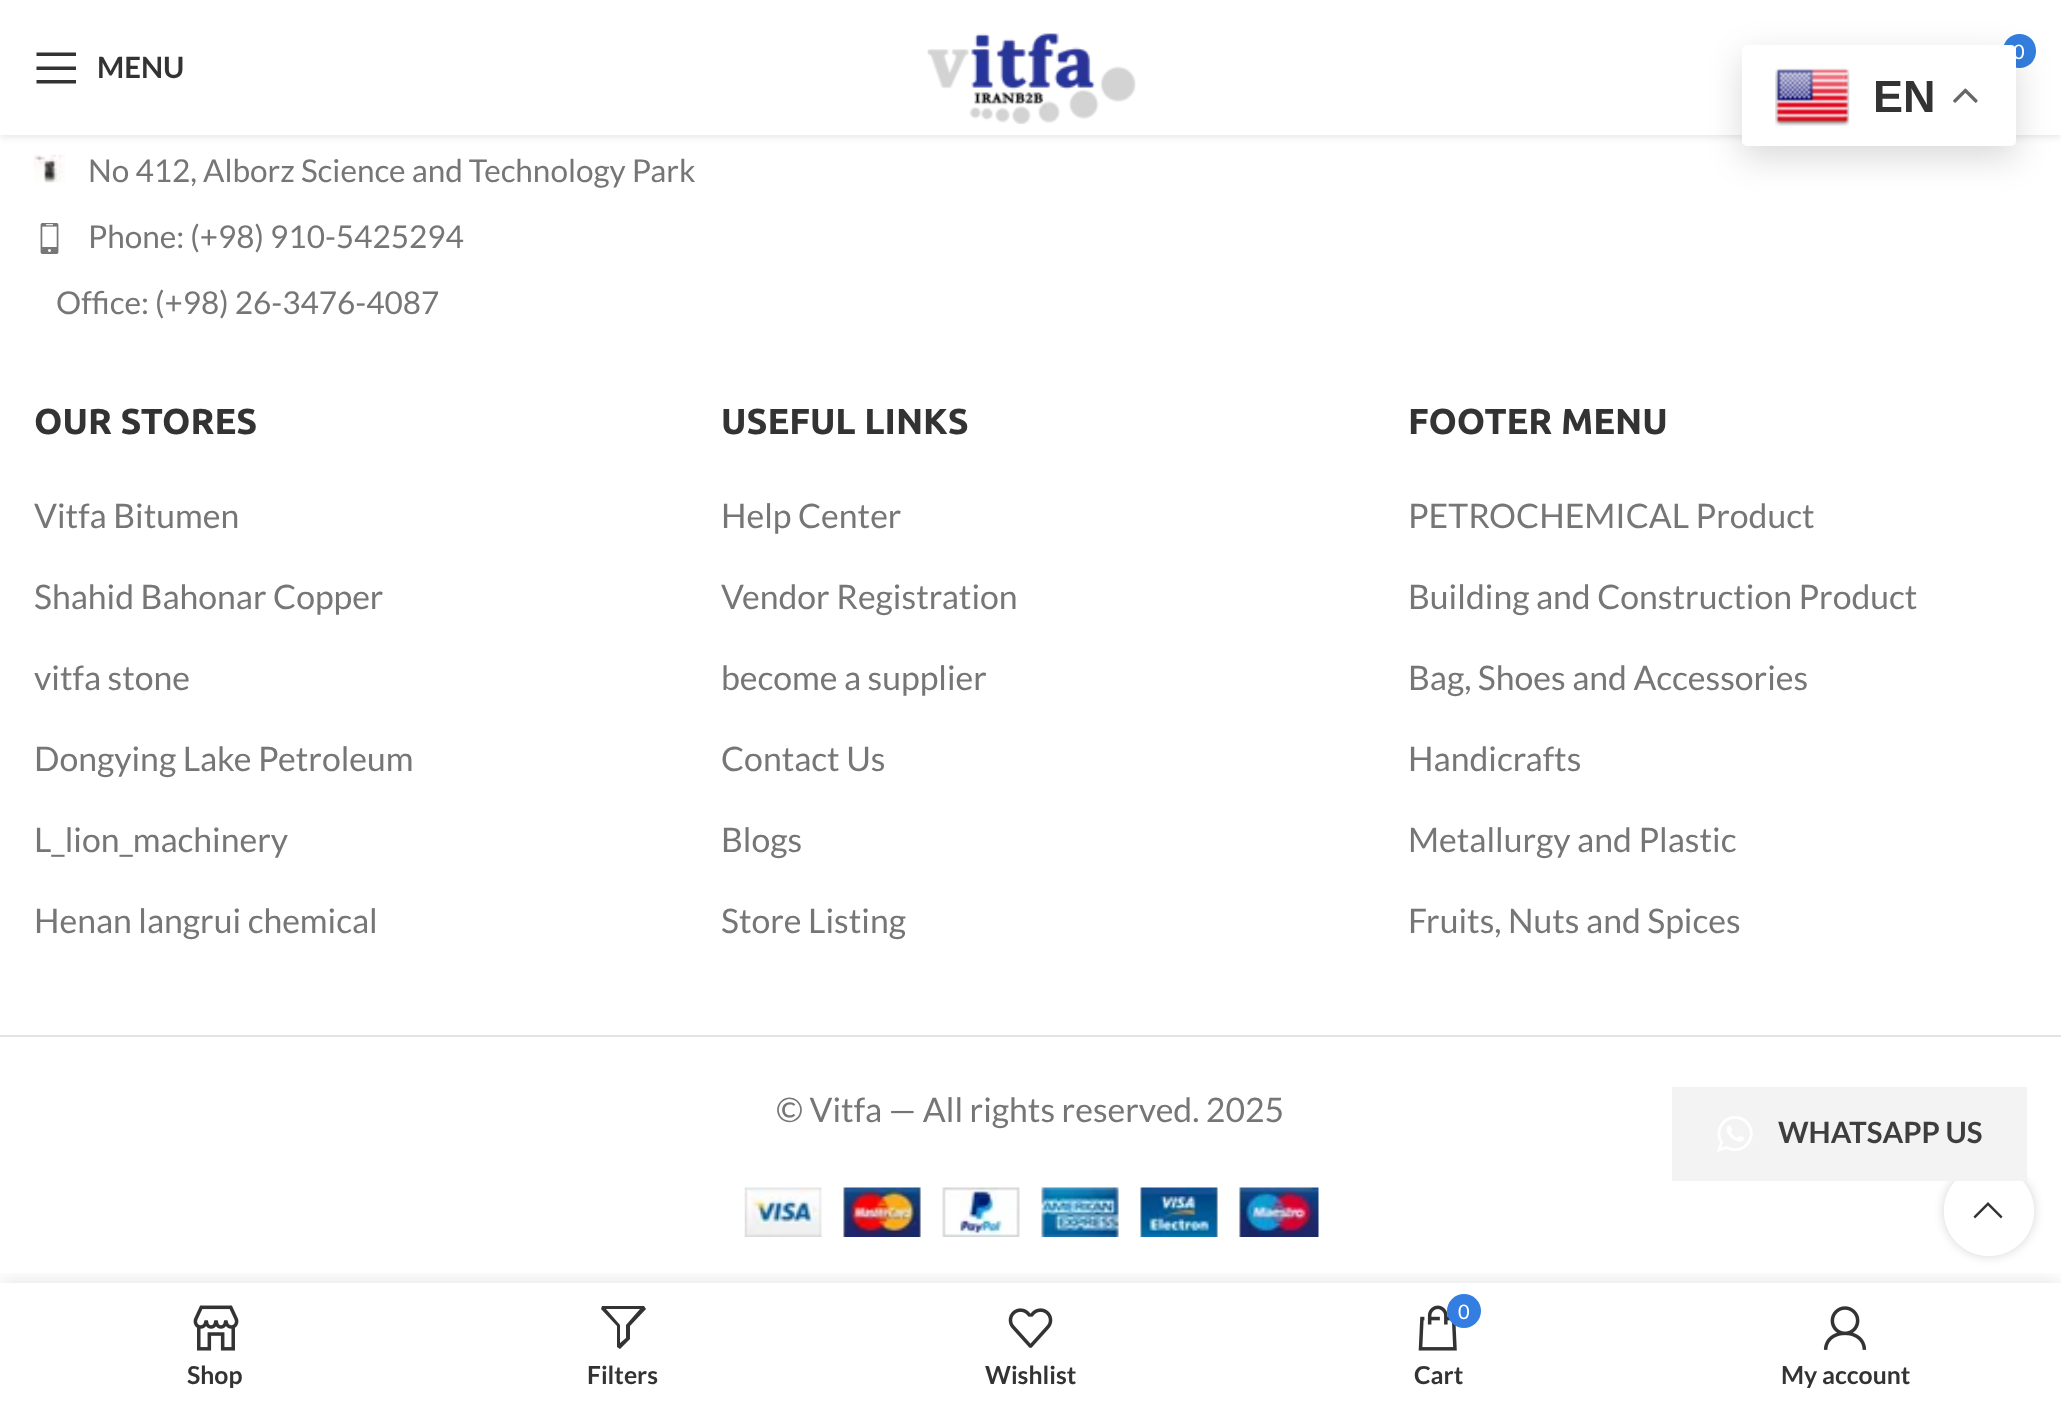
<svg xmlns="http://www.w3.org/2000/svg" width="2061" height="1405">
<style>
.a{font:20px Lato;fill:#fff}
.b{font:bold 29.25px Lato;fill:#333}
.c{font:31.5px Lato;fill:#767676}
.d{font:bold 36px Ubuntu;fill:#333}
.e{font:33.75px Lato;fill:#767676}
.f{font:bold 45px Liberation Sans;fill:#333}
.g{font:bold 29.25px Lato;fill:#3e3e3e}
.h{font:bold 24.75px Lato;fill:#333}
</style>
<defs>
<clipPath id="clip1"><path d="M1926 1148h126v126h-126zm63 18c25 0 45 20 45 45c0 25-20 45-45 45c-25 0-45-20-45-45c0-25 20-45 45-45z" clip-rule="evenodd"/></clipPath>
<clipPath id="clip2"><path d="M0 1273h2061v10H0z"/></clipPath>
<clipPath id="clip3"><path d="M34 1359h362v29H34z"/></clipPath>
<clipPath id="clip4"><path d="M1665 1359h362v29H1665z"/></clipPath>
</defs>
<rect width="100%" height="100%" fill="#fff"/>
<path fill="#0000001a" filter="blur(3.5px)" d="M0 2h2061v135H0z"/>
<path fill="#fff" d="M0 0h2061v135H0z"/>
<image href="1.png" x="927" y="33" width="209" height="91"/>
<rect fill="#337ee0" x="2003" y="34" width="33" height="34" rx="16.5"/>
<path fill="#333" d="M36.5 56h39.5v-3.5h-39.5zm0 14h39.5v-3.5h-39.5zm0 13.5h39.5v-3.5h-39.5z"/>
<image href="2.png" x="34" y="154" width="31" height="29"/>
<image href="3.png" x="40" y="223" width="19" height="31"/>
<path fill="#e4e4e4" d="M0 1035h2061v2H0z"/>
<image href="4.png" x="744" y="1187" width="575" height="50"/>
<rect fill="#00000026" filter="blur(17px)" x="1742" y="56" width="274" height="102" rx="5"/>
<rect fill="#fff" x="1742" y="45" width="274" height="101" rx="5"/>
<image href="5.png" x="1775" y="68" width="75" height="58"/>
<image href="6.png" x="1953" y="88" width="25" height="15"/>
<g clip-path="url(#clip1)">
<rect fill="#0000002b" filter="blur(5.5px)" x="1944" y="1166" width="90" height="90" rx="45"/>
</g>
<circle fill="#ffffffe6" cx="1989" cy="1211" r="45"/>
<path fill="#f3f3f3" d="M1672 1087h355v94H1672z"/>
<image href="7.png" x="1717" y="1116" width="36" height="36"/>
<path fill="#333" d="M2001 1218.5l1.5-2l-14.5-14.5l-14.5 14.5l1.5 2l13-13z"/>
<g clip-path="url(#clip2)">
<path fill="#0000001f" filter="blur(10px)" d="M0 1283h2061v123H0z"/>
</g>
<image href="8.png" x="193" y="1305" width="46" height="46"/>
<path fill="#333" d="M602 1306l-1 3l16 17v21l3 2l10-10v-13l16-17l-2-3zm4 3h34l-14 16v13l-6 5v-18z"/>
<image href="9.png" x="1008" y="1308" width="45" height="40"/>
<image href="10.png" x="1418" y="1305" width="39" height="46"/>
<circle fill="#337ee0" cx="1464" cy="1311" r="17"/>
<image href="11.png" x="1823" y="1306" width="44" height="44"/>
<text class="a" x="2013" y="59">0</text>
<text class="b" x="97" y="78">MENU</text>
<text class="c" x="88" y="182">No 412, Alborz Science and Technology Park</text>
<text class="c" x="88" y="248">Phone: (+98) 910-5425294</text>
<text class="c" x="56" y="314">Office: (+98) 26-3476-4087</text>
<text class="d" x="34" y="434">OUR STORES</text>
<text class="e" x="34" y="528">Vitfa Bitumen</text>
<text class="e" x="34" y="609">Shahid Bahonar Copper</text>
<text class="e" x="34" y="690">vitfa stone</text>
<text class="e" x="34" y="771">Dongying Lake Petroleum</text>
<text class="e" x="34" y="852">L_lion_machinery</text>
<text class="e" x="34" y="933">Henan langrui chemical</text>
<text class="d" x="721" y="434">USEFUL LINKS</text>
<text class="e" x="721" y="528">Help Center</text>
<text class="e" x="721" y="609">Vendor Registration</text>
<text class="e" x="721" y="690">become a supplier</text>
<text class="e" x="721" y="771">Contact Us</text>
<text class="e" x="721" y="852">Blogs</text>
<text class="e" x="721" y="933">Store Listing</text>
<text class="d" x="1408" y="434">FOOTER MENU</text>
<text class="e" x="1408" y="528">PETROCHEMICAL Product</text>
<text class="e" x="1408" y="609">Building and Construction Product</text>
<text class="e" x="1408" y="690">Bag, Shoes and Accessories</text>
<text class="e" x="1408" y="771">Handicrafts</text>
<text class="e" x="1408" y="852">Metallurgy and Plastic</text>
<text class="e" x="1408" y="933">Fruits, Nuts and Spices</text>
<text class="e" x="776" y="1122">© Vitfa — All rights reserved. 2025</text>
<text class="f" x="1873" y="112">EN</text>
<text class="g" x="1778" y="1143">WHATSAPP US</text>
<g clip-path="url(#clip3)">
<text class="h" x="187" y="1384">Shop</text>
</g>
<text class="h" x="587" y="1384">Filters</text>
<text class="h" x="985" y="1384">Wishlist</text>
<text class="a" x="1458" y="1319">0</text>
<text class="h" x="1414" y="1384">Cart</text>
<g clip-path="url(#clip4)">
<text class="h" x="1781" y="1384">My account</text>
</g>
</svg>
